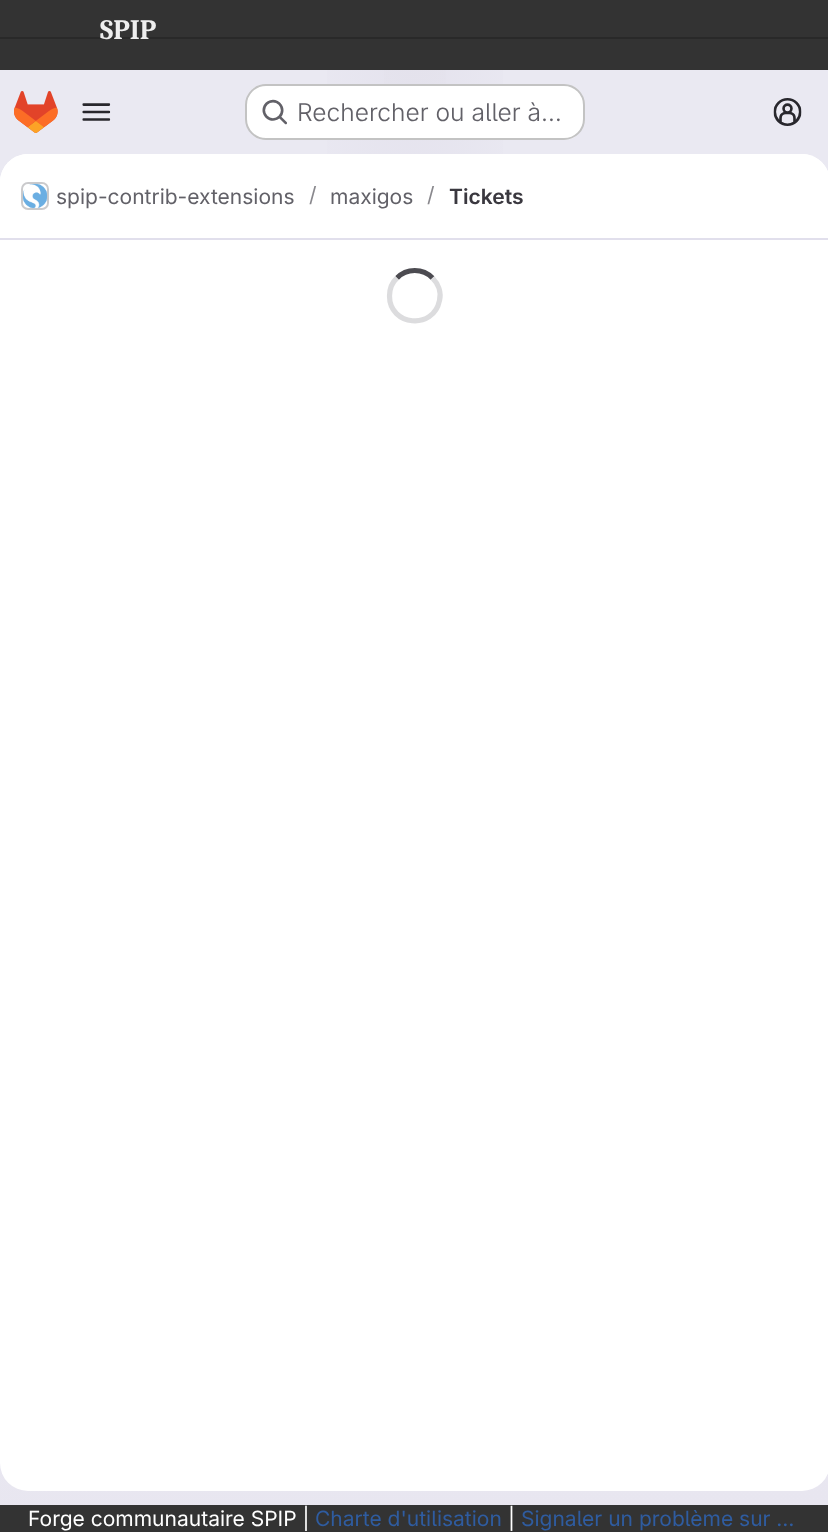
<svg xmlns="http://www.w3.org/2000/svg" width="828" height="1532">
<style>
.a{font:bold 28px Caladea;fill:#eee}
.b{font:300 24.5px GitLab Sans;fill:#626168}
.c{font:21px GitLab Sans;fill:#626168}
.d{font:21px GitLab Sans;fill:#89888d}
.e{font:600 21px GitLab Sans;fill:#3a383f}
.f{font:21px GitLab Sans;fill:#fff}
.g{font:21px GitLab Sans;fill:#2f5ca0}
</style>
<defs>
<linearGradient id="g1" gradientUnits="userSpaceOnUse" x1="558" y1="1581" x2="271" y2="-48"><stop offset="0" stop-color="#e8e6f0"/><stop offset="0.7" stop-color="#eae9f2"/></linearGradient>
<radialGradient id="g2" gradientUnits="userSpaceOnUse" cx="0" cy="0" r="1" gradientTransform="matrix(415 0 0 1533 415 0)"><stop offset="0" stop-color="#e4e2ed"/><stop offset="0.3" stop-color="#e4e2ed" stop-opacity="0"/></radialGradient>
<radialGradient id="g3" gradientUnits="userSpaceOnUse" cx="0" cy="0" r="1" gradientTransform="matrix(415 0 0 1533 415 0)"><stop offset="0" stop-color="#e4e2ec"/><stop offset="0.21" stop-color="#e4e2ec" stop-opacity="0"/></radialGradient>
</defs>
<rect width="100%" height="100%" fill="#fff"/>
<path fill="url(#g1)" d="M0 70h828v1435H0z"/>
<path fill="url(#g2)" d="M327 70h176v84H327z"/>
<path fill="url(#g3)" d="M384 70h62v52H384z"/>
<path fill="#333" d="M0 0h828v70H0z"/>
<path fill="#292929" d="M0 37h828v2H0z"/>
<image href="1.png" x="14" y="91" width="44" height="42"/>
<image href="2.png" x="82" y="103" width="29" height="18"/>
<rect fill="#fff" x="245" y="84" width="340" height="56" rx="21"/>
<rect fill="none" stroke="#0505063d" stroke-width="2" x="246" y="85" width="338" height="54" rx="20"/>
<image href="3.png" x="262" y="99" width="25" height="26"/>
<image href="4.png" x="773" y="98" width="29" height="28"/>
<rect fill="#fff" y="154" width="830" height="1337" rx="28"/>
<path fill="#fff" d="M28 154h774c15.5 0 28 12.5 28 28v58h-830v-58c0-15.5 12.5-28 28-28z"/>
<path fill="#e1dfec" d="M0 238h828v2H0z"/>
<rect fill="none" stroke="#dcdcde" stroke-width="2" x="22" y="183" width="26" height="26" rx="6"/>
<image href="5.png" x="22" y="183" width="26" height="26"/>
<rect fill="none" stroke="#05050614" stroke-width="2" x="22" y="183" width="26" height="26" rx="6"/>
<path fill="none" stroke="#4c4b51" stroke-width="5.2" d="M397 278c9.5-10 26-10 35.5 0"/>
<path fill="none" stroke="#dcdcde" stroke-width="5.2" d="M432.5 278c6 6 9 14.5 7 22.5c-6 30-50 25.5-50-4.5c0-7 2.5-13.5 7.5-18"/>
<path fill="#333" d="M0 1505h828v27H0z"/>
<text class="a" x="100" y="39">SPIP</text>
<text class="b" x="297" y="121">Rechercher ou aller à…</text>
<text class="c" x="56" y="204">spip-contrib-extensions</text>
<text class="d" x="309" y="202">/</text>
<text class="c" x="330" y="204">maxigos</text>
<text class="d" x="427" y="202">/</text>
<text class="e" x="449" y="204">Tickets</text>
<text class="f" x="28" y="1526">Forge communautaire SPIP |</text>
<text class="g" x="315" y="1526">Charte d'utilisation</text>
<text class="f" x="508" y="1526">|</text>
<text class="g" x="521" y="1526">Signaler un problème sur …</text>
</svg>
